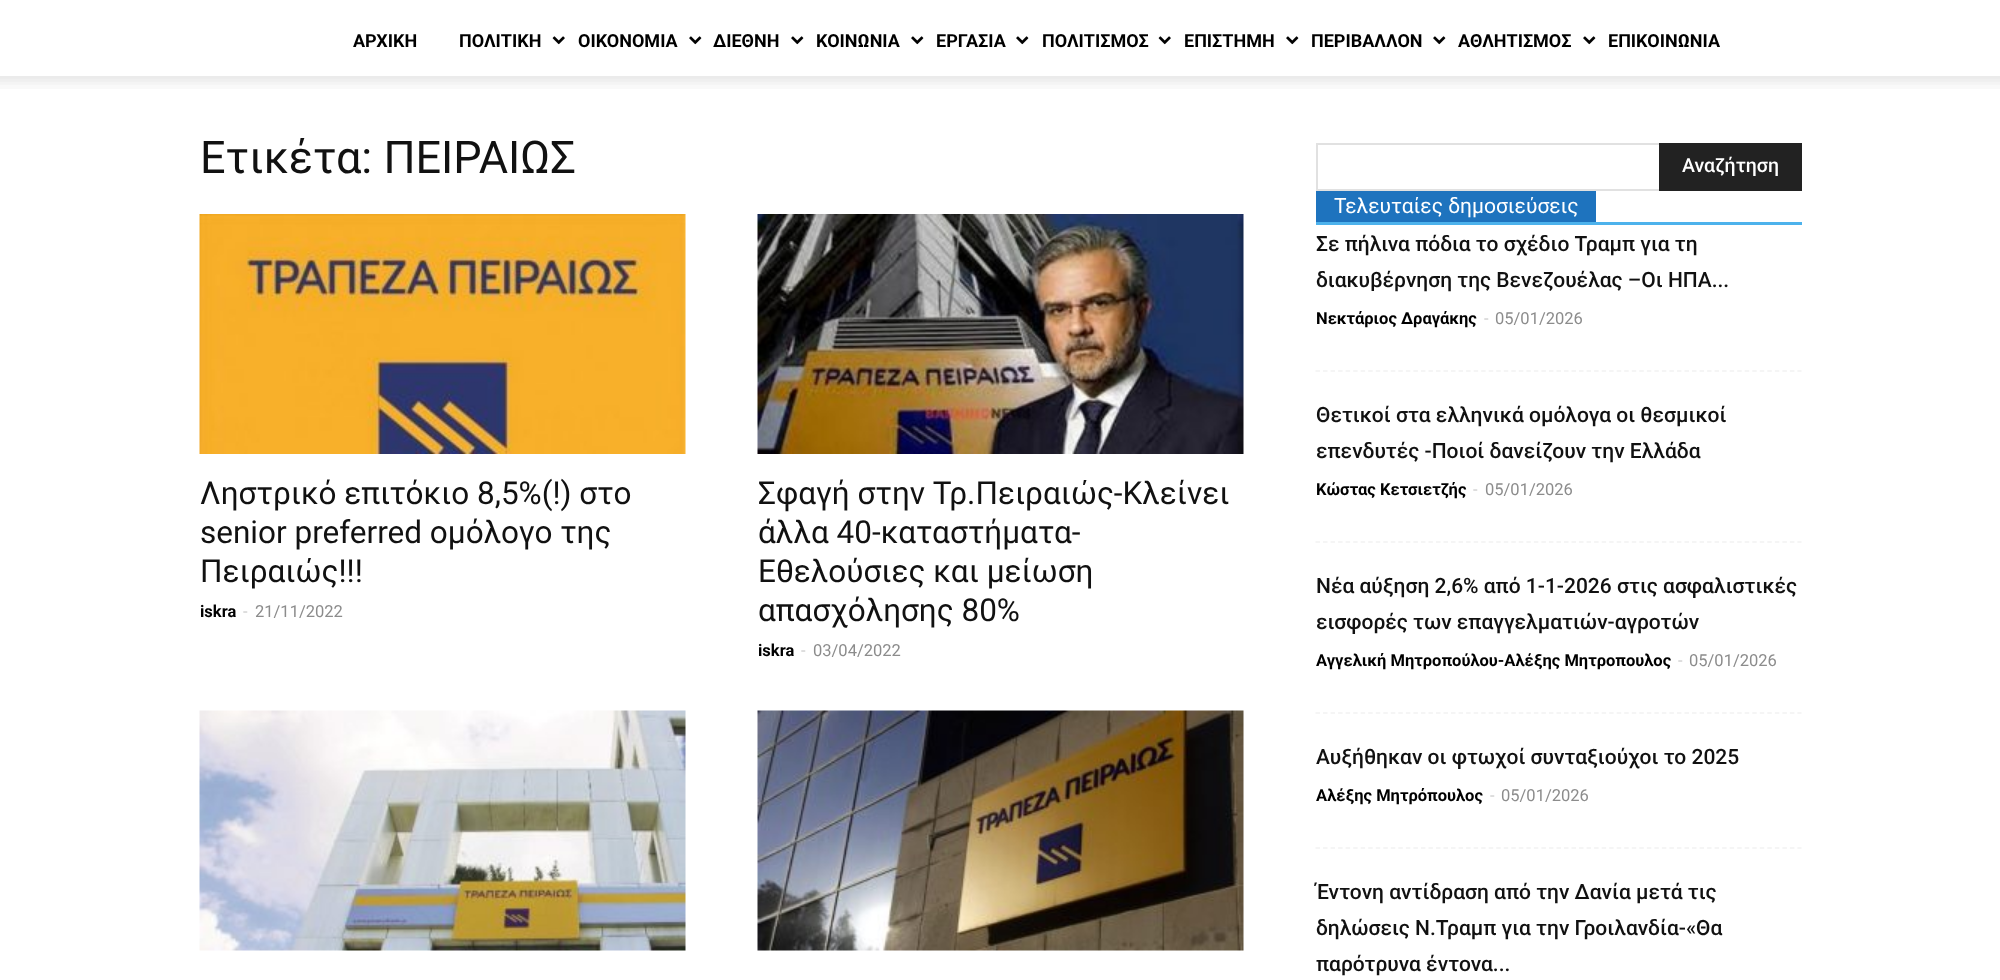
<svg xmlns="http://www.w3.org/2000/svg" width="2000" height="980">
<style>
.a{font:bold 18px Roboto;fill:#000}
.b{font:45px Roboto;fill:#111}
.c{font:31.5px Roboto;fill:#111}
.d{font:bold 16.5px Roboto;fill:#000}
.e{font:16.5px Roboto;fill:#ccc}
.f{font:16.5px Roboto;fill:#8c8c8c}
.g{font:500 19.5px Roboto;fill:#fff}
.h{font:21px Roboto;fill:#fff}
.i{font:500 21px Roboto;fill:#111}
</style>
<rect width="100%" height="100%" fill="#fff"/>
<image href="1.png" x="552" y="36" width="13" height="9"/>
<image href="2.png" x="689" y="36" width="13" height="9"/>
<image href="2.png" x="791" y="36" width="13" height="9"/>
<image href="2.png" x="911" y="36" width="13" height="9"/>
<image href="2.png" x="1016" y="36" width="13" height="9"/>
<image href="1.png" x="1158" y="36" width="13" height="9"/>
<image href="2.png" x="1286" y="36" width="13" height="9"/>
<image href="2.png" x="1433" y="36" width="13" height="9"/>
<image href="2.png" x="1583" y="36" width="13" height="9"/>
<image href="3.png" x="0" y="76" width="2000" height="13"/>
<image href="4.png" x="199" y="214" width="487" height="240"/>
<image href="5.png" x="757" y="214" width="487" height="240"/>
<image href="6.png" x="199" y="710" width="487" height="241"/>
<image href="7.png" x="757" y="710" width="487" height="241"/>
<path fill="#e1e1e1" d="M1316 143h343v2H1316z"/>
<path fill="#e1e1e1" d="M1316 189h343v2H1316z"/>
<path fill="#e1e1e1" d="M1316 143h2v48H1316z"/>
<path fill="#222" d="M1659 143h143v48H1659z"/>
<path fill="#4db2ec" d="M1316 222h486v3H1316z"/>
<path fill="#1e73be" d="M1316 191h280v31H1316z"/>
<path fill="none" stroke="#f2f2f2" stroke-width="1.5" stroke-dasharray="4.5 3.03" d="M1315.5 371h486"/>
<path fill="none" stroke="#f2f2f2" stroke-width="1.5" stroke-dasharray="4.5 3.03" d="M1315.5 542h486"/>
<path fill="none" stroke="#f2f2f2" stroke-width="1.5" stroke-dasharray="4.5 3.03" d="M1315.5 713h486"/>
<path fill="none" stroke="#f2f2f2" stroke-width="1.5" stroke-dasharray="4.5 3.03" d="M1315.5 848h486"/>
<text class="a" x="353" y="47">ΑΡΧΙΚΗ</text>
<text class="a" x="459" y="47">ΠΟΛΙΤΙΚΗ</text>
<text class="a" x="578" y="47">ΟΙΚΟΝΟΜΙΑ</text>
<text class="a" x="713" y="47">ΔΙΕΘΝΗ</text>
<text class="a" x="816" y="47">ΚΟΙΝΩΝΙΑ</text>
<text class="a" x="936" y="47">ΕΡΓΑΣΙΑ</text>
<text class="a" x="1042" y="47">ΠΟΛΙΤΙΣΜΟΣ</text>
<text class="a" x="1184" y="47">ΕΠΙΣΤΗΜΗ</text>
<text class="a" x="1311" y="47">ΠΕΡΙΒΑΛΛΟΝ</text>
<text class="a" x="1458" y="47">ΑΘΛΗΤΙΣΜΟΣ</text>
<text class="a" x="1608" y="47">ΕΠΙΚΟΙΝΩΝΙΑ</text>
<text class="b" x="200" y="173">Ετικέτα: ΠΕΙΡΑΙΩΣ</text>
<text class="c" x="200" y="504">Ληστρικό επιτόκιο 8,5%(!) στο</text>
<text class="c" x="200" y="543">senior preferred ομόλογο της</text>
<text class="c" x="200" y="582">Πειραιώς!!!</text>
<text class="d" x="200" y="617">iskra</text>
<text class="e" x="243" y="617">-</text>
<text class="f" x="255" y="617">21/11/2022</text>
<text class="c" x="758" y="504">Σφαγή στην Τρ.Πειραιώς-Κλείνει</text>
<text class="c" x="758" y="543">άλλα 40-καταστήματα-</text>
<text class="c" x="758" y="582">Εθελούσιες και μείωση</text>
<text class="c" x="758" y="621">απασχόλησης 80%</text>
<text class="d" x="758" y="656">iskra</text>
<text class="e" x="801" y="656">-</text>
<text class="f" x="813" y="656">03/04/2022</text>
<text class="g" x="1682" y="172">Αναζήτηση</text>
<text class="h" x="1334" y="213">Τελευταίες δημοσιεύσεις</text>
<text class="i" x="1316" y="251">Σε πήλινα πόδια το σχέδιο Τραμπ για τη</text>
<text class="i" x="1316" y="287">διακυβέρνηση της Βενεζουέλας –Οι ΗΠΑ...</text>
<text class="d" x="1316" y="324">Νεκτάριος Δραγάκης</text>
<text class="e" x="1484" y="324">-</text>
<text class="f" x="1495" y="324">05/01/2026</text>
<text class="i" x="1316" y="422">Θετικοί στα ελληνικά ομόλογα οι θεσμικοί</text>
<text class="i" x="1316" y="458">επενδυτές -Ποιοί δανείζουν την Ελλάδα</text>
<text class="d" x="1316" y="495">Κώστας Κετσιετζής</text>
<text class="e" x="1473" y="495">-</text>
<text class="f" x="1485" y="495">05/01/2026</text>
<text class="i" x="1316" y="593">Νέα αύξηση 2,6% από 1-1-2026 στις ασφαλιστικές</text>
<text class="i" x="1316" y="629">εισφορές των επαγγελματιών-αγροτών</text>
<text class="d" x="1316" y="666">Αγγελική Μητροπούλου-Αλέξης Μητροπουλος</text>
<text class="e" x="1678" y="666">-</text>
<text class="f" x="1689" y="666">05/01/2026</text>
<text class="i" x="1316" y="764">Αυξήθηκαν οι φτωχοί συνταξιούχοι το 2025</text>
<text class="d" x="1316" y="801">Αλέξης Μητρόπουλος</text>
<text class="e" x="1490" y="801">-</text>
<text class="f" x="1501" y="801">05/01/2026</text>
<text class="i" x="1316" y="899">Έντονη αντίδραση από την Δανία μετά τις</text>
<text class="i" x="1316" y="935">δηλώσεις Ν.Τραμπ για την Γροιλανδία-«Θα</text>
<text class="i" x="1316" y="971">παρότρυνα έντονα...</text>
</svg>
